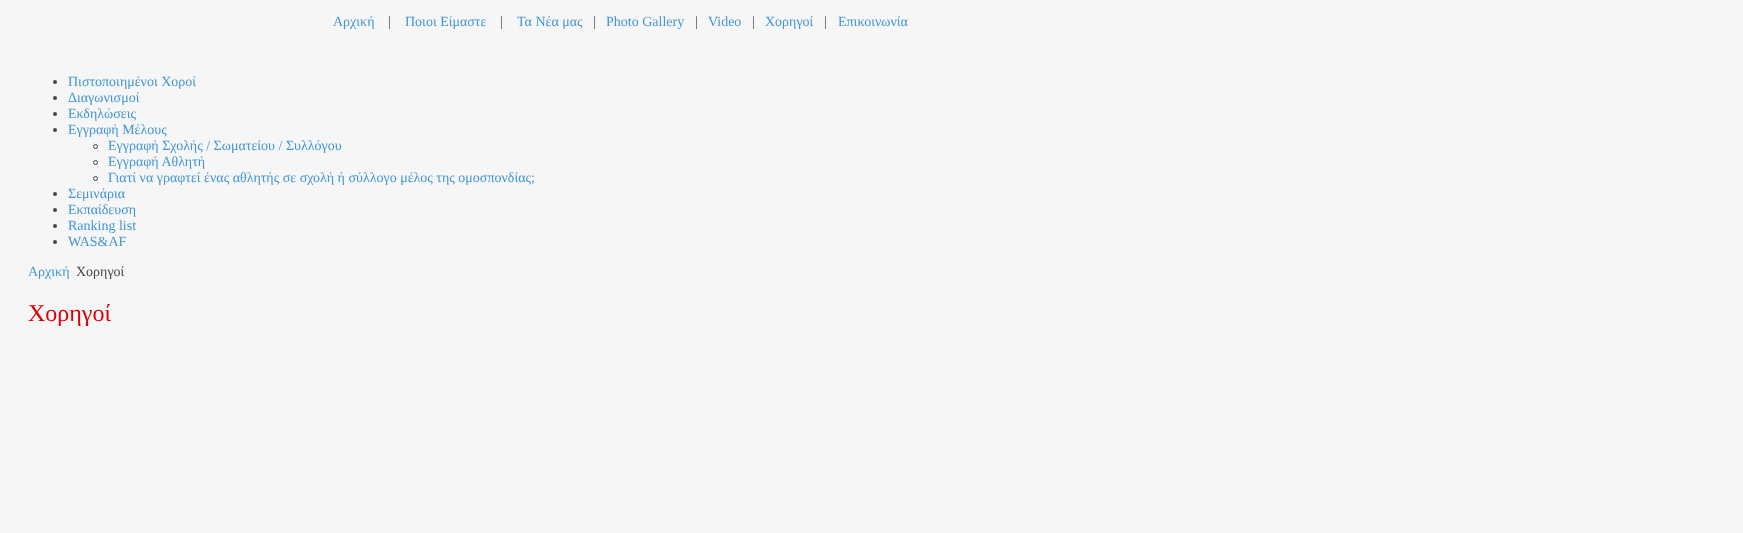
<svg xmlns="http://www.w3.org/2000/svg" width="1743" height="533">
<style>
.a{font:14px Liberation Serif;fill:#4296d7}
.b{font:14px Liberation Serif;fill:#42484d}
.c{font:24px Liberation Serif;fill:#dc0006}
</style>
<rect width="100%" height="100%" fill="#f6f6f6"/>
<circle fill="#42484d" cx="55" cy="82" r="2"/>
<circle fill="#42484d" cx="55" cy="98" r="2"/>
<circle fill="#42484d" cx="55" cy="114" r="2"/>
<circle fill="#42484d" cx="55" cy="130" r="2"/>
<circle fill="none" stroke="#42484d" cx="95.5" cy="146.5" r="2"/>
<circle fill="none" stroke="#42484d" cx="95.5" cy="162.5" r="2"/>
<circle fill="none" stroke="#42484d" cx="95.5" cy="178.5" r="2"/>
<circle fill="#42484d" cx="55" cy="194" r="2"/>
<circle fill="#42484d" cx="55" cy="210" r="2"/>
<circle fill="#42484d" cx="55" cy="226" r="2"/>
<circle fill="#42484d" cx="55" cy="242" r="2"/>
<text class="a" x="333" y="26">Αρχική</text>
<text class="b" x="388" y="26">|</text>
<text class="a" x="405" y="26">Ποιοι Είμαστε</text>
<text class="b" x="500" y="26">|</text>
<text class="a" x="517" y="26">Τα Νέα μας</text>
<text class="b" x="593" y="26">|</text>
<text class="a" x="606" y="26">Photo Gallery</text>
<text class="b" x="695" y="26">|</text>
<text class="a" x="708" y="26">Video</text>
<text class="b" x="752" y="26">|</text>
<text class="a" x="765" y="26">Χορηγοί</text>
<text class="b" x="824" y="26">|</text>
<text class="a" x="838" y="26">Επικοινωνία</text>
<text class="a" x="68" y="86">Πιστοποιημένοι Χοροί</text>
<text class="a" x="68" y="102">Διαγωνισμοί</text>
<text class="a" x="68" y="118">Εκδηλώσεις</text>
<text class="a" x="68" y="134">Εγγραφή Μέλους</text>
<text class="a" x="108" y="150">Εγγραφή Σχολής / Σωματείου / Συλλόγου</text>
<text class="a" x="108" y="166">Εγγραφή Αθλητή</text>
<text class="a" x="108" y="182">Γιατί να γραφτεί ένας αθλητής σε σχολή ή σύλλογο μέλος της ομοσπονδίας;</text>
<text class="a" x="68" y="198">Σεμινάρια</text>
<text class="a" x="68" y="214">Εκπαίδευση</text>
<text class="a" x="68" y="230">Ranking list</text>
<text class="a" x="68" y="246">WAS&amp;AF</text>
<text class="a" x="28" y="276">Αρχική</text>
<text class="b" x="76" y="276">Χορηγοί</text>
<text class="c" x="28" y="321">Χορηγοί</text>
</svg>
